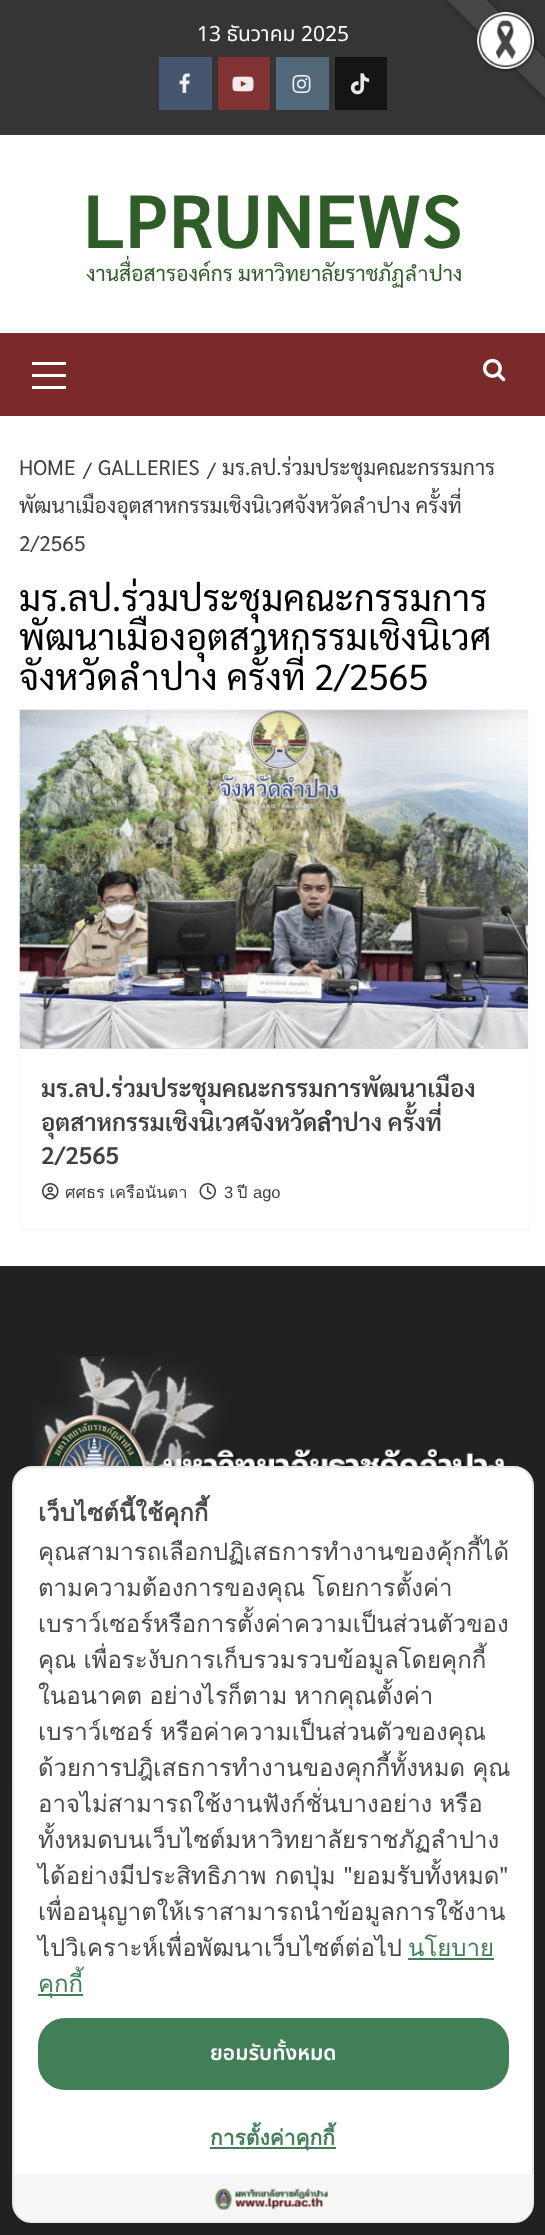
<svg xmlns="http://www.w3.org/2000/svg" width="545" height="2235">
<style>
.a{font:21px Noto Sans Thai;fill:#fff}
.b{font:600 75px Sarabun;fill:#2e5d28}
.c{font:21px Sarabun;fill:#2e5d28}
.d{font:21px Sarabun;fill:#404040}
.e{font:36px Sarabun;fill:#000}
.f{font:600 24px Sarabun;fill:#404040}
.g{font:16.5px Loma;fill:#404040}
.h{font:16.5px Liberation Sans;fill:#404040}
.i{font:bold 24px Loma;fill:#4a4a4a}
.j{font:24px Loma;fill:#4a4a4a}
.k{font:24px Loma;fill:#418056}
.l{font:600 21px Noto Sans Thai;fill:#fff}
.m{font:bold 21px Loma;fill:#418056}
</style>
<rect width="100%" height="100%" fill="#fff"/>
<path fill="#353535" d="M0 0h545v135H0z"/>
<image href="1.png" x="445" y="0" width="100" height="100"/>
<path fill="#475571" d="M159 57h53v53H159z"/>
<image href="2.png" x="179" y="73" width="11" height="20"/>
<path fill="#813232" d="M218 57h52v53H218z"/>
<image href="3.png" x="232" y="76" width="22" height="16"/>
<path fill="#52687b" d="M276 57h53v53H276z"/>
<image href="4.png" x="292" y="75" width="19" height="18"/>
<path fill="#151515" d="M335 57h52v53H335z"/>
<image href="5.png" x="350" y="73" width="20" height="22"/>
<path fill="#7b2a2a" d="M0 333h545v83H0z"/>
<path fill="#fff" d="M32 374h34v3H32z"/>
<path fill="#fff" d="M32 362h34v3H32z"/>
<path fill="#fff" d="M32 386h34v3H32z"/>
<image href="6.png" x="483" y="358" width="23" height="24"/>
<path fill="#0000000d" filter="blur(1.5px)" d="M20 711h508v519H20z"/>
<path fill="#fff" d="M20 1049h508v180H20z"/>
<path fill="#d8d8d8" d="M20 1048h508v1H20z"/>
<image href="7.png" x="19" y="709" width="509" height="340"/>
<image href="8.png" x="42" y="1183" width="17" height="17"/>
<image href="9.png" x="199" y="1183" width="17" height="17"/>
<path fill="#202123" d="M0 1266h545v969H0z"/>
<image href="10.png" x="34" y="1356" width="473" height="110"/>
<rect fill="#fff" stroke="#e8e8e8" stroke-width="2" x="13" y="1467" width="520" height="755" rx="19"/>
<path fill="#418056" d="M408 1958h86v2H408z"/>
<path fill="#418056" d="M38 1994h45v2H38z"/>
<rect fill="#418056" x="38" y="2018" width="471" height="72" rx="27"/>
<path fill="#418056" d="M210 2147h126v2H210z"/>
<path fill="#f6f6f6" d="M14 2174h519v28c0 11-9 20-20 20h-479c-11 0-20-9-20-20z"/>
<image href="11.png" x="214" y="2188" width="114" height="22"/>
<text class="a" x="197" y="41">13 ธันวาคม 2025</text>
<text class="b" x="83" y="248">LPRUNEWS</text>
<text class="c" x="86" y="281">งานสื่อสารองค์กร มหาวิทยาลัยราชภัฏลำปาง</text>
<text class="d" x="207" y="478">/</text>
<text class="d" x="222" y="475">มร.ลป.ร่วมประชุมคณะกรรมการ</text>
<text class="d" x="19" y="513">พัฒนาเมืองอุตสาหกรรมเชิงนิเวศจังหวัดลำปาง ครั้งที่</text>
<text class="d" x="19" y="551">2/2565</text>
<text class="d" x="19" y="475">HOME</text>
<text class="d" x="83" y="478">/</text>
<text class="d" x="98" y="475">GALLERIES</text>
<text class="e" x="19" y="611">มร.ลป.ร่วมประชุมคณะกรรมการ</text>
<text class="e" x="19" y="650">พัฒนาเมืองอุตสาหกรรมเชิงนิเวศ</text>
<text class="e" x="19" y="690">จังหวัดลำปาง ครั้งที่ 2/2565</text>
<text class="f" x="41" y="1097">มร.ลป.ร่วมประชุมคณะกรรมการพัฒนาเมือง</text>
<text class="f" x="41" y="1131">อุตสาหกรรมเชิงนิเวศจังหวัดลำปาง ครั้งที่</text>
<text class="f" x="41" y="1164">2/2565</text>
<text class="g" x="65" y="1198" word-spacing="-1">ศศธร เครือนันตา</text>
<text class="h" x="224" y="1198">3</text>
<text class="g" x="237" y="1198">ปี</text>
<text class="h" x="253" y="1198">ago</text>
<text class="i" x="38" y="1521">เว็บไซต์นี้ใช้คุกกี้</text>
<text class="j" x="38" y="1560">คุณสามารถเลือกปฏิเสธการทำงานของคุ้กกี้ได้</text>
<text class="j" x="38" y="1596" word-spacing="-1">ตามความต้องการของคุณ โดยการตั้งค่า</text>
<text class="j" x="38" y="1632">เบราว์เซอร์หรือการตั้งค่าความเป็นส่วนตัวของ</text>
<text class="j" x="38" y="1668" word-spacing="-1">คุณ เพื่อระงับการเก็บรวมรวบข้อมูลโดยคุกกี้</text>
<text class="j" x="38" y="1704" word-spacing="-1">ในอนาคต อย่างไรก็ตาม หากคุณตั้งค่า</text>
<text class="j" x="38" y="1740" word-spacing="-1">เบราว์เซอร์ หรือค่าความเป็นส่วนตัวของคุณ</text>
<text class="j" x="38" y="1776" word-spacing="-1">ด้วยการปฎิเสธการทำงานของคุกกี้ทั้งหมด คุณ</text>
<text class="j" x="38" y="1812" word-spacing="-1">อาจไม่สามารถใช้งานฟังก์ชั่นบางอย่าง หรือ</text>
<text class="j" x="38" y="1848">ทั้งหมดบนเว็บไซต์มหาวิทยาลัยราชภัฏลำปาง</text>
<text class="j" x="38" y="1884">ได้อย่างมีประสิทธิภาพ กดปุ่ม "ยอมรับทั้งหมด"</text>
<text class="j" x="38" y="1920">เพื่ออนุญาตให้เราสามารถนำข้อมูลการใช้งาน</text>
<text class="j" x="38" y="1956">ไปวิเคราะห์เพื่อพัฒนาเว็บไซต์ต่อไป</text>
<text class="k" x="408" y="1956">นโยบาย</text>
<text class="k" x="38" y="1992">คุกกี้</text>
<text class="l" x="210" y="2060">ยอมรับทั้งหมด</text>
<text class="m" x="210" y="2145">การตั้งค่าคุกกี้</text>
</svg>
